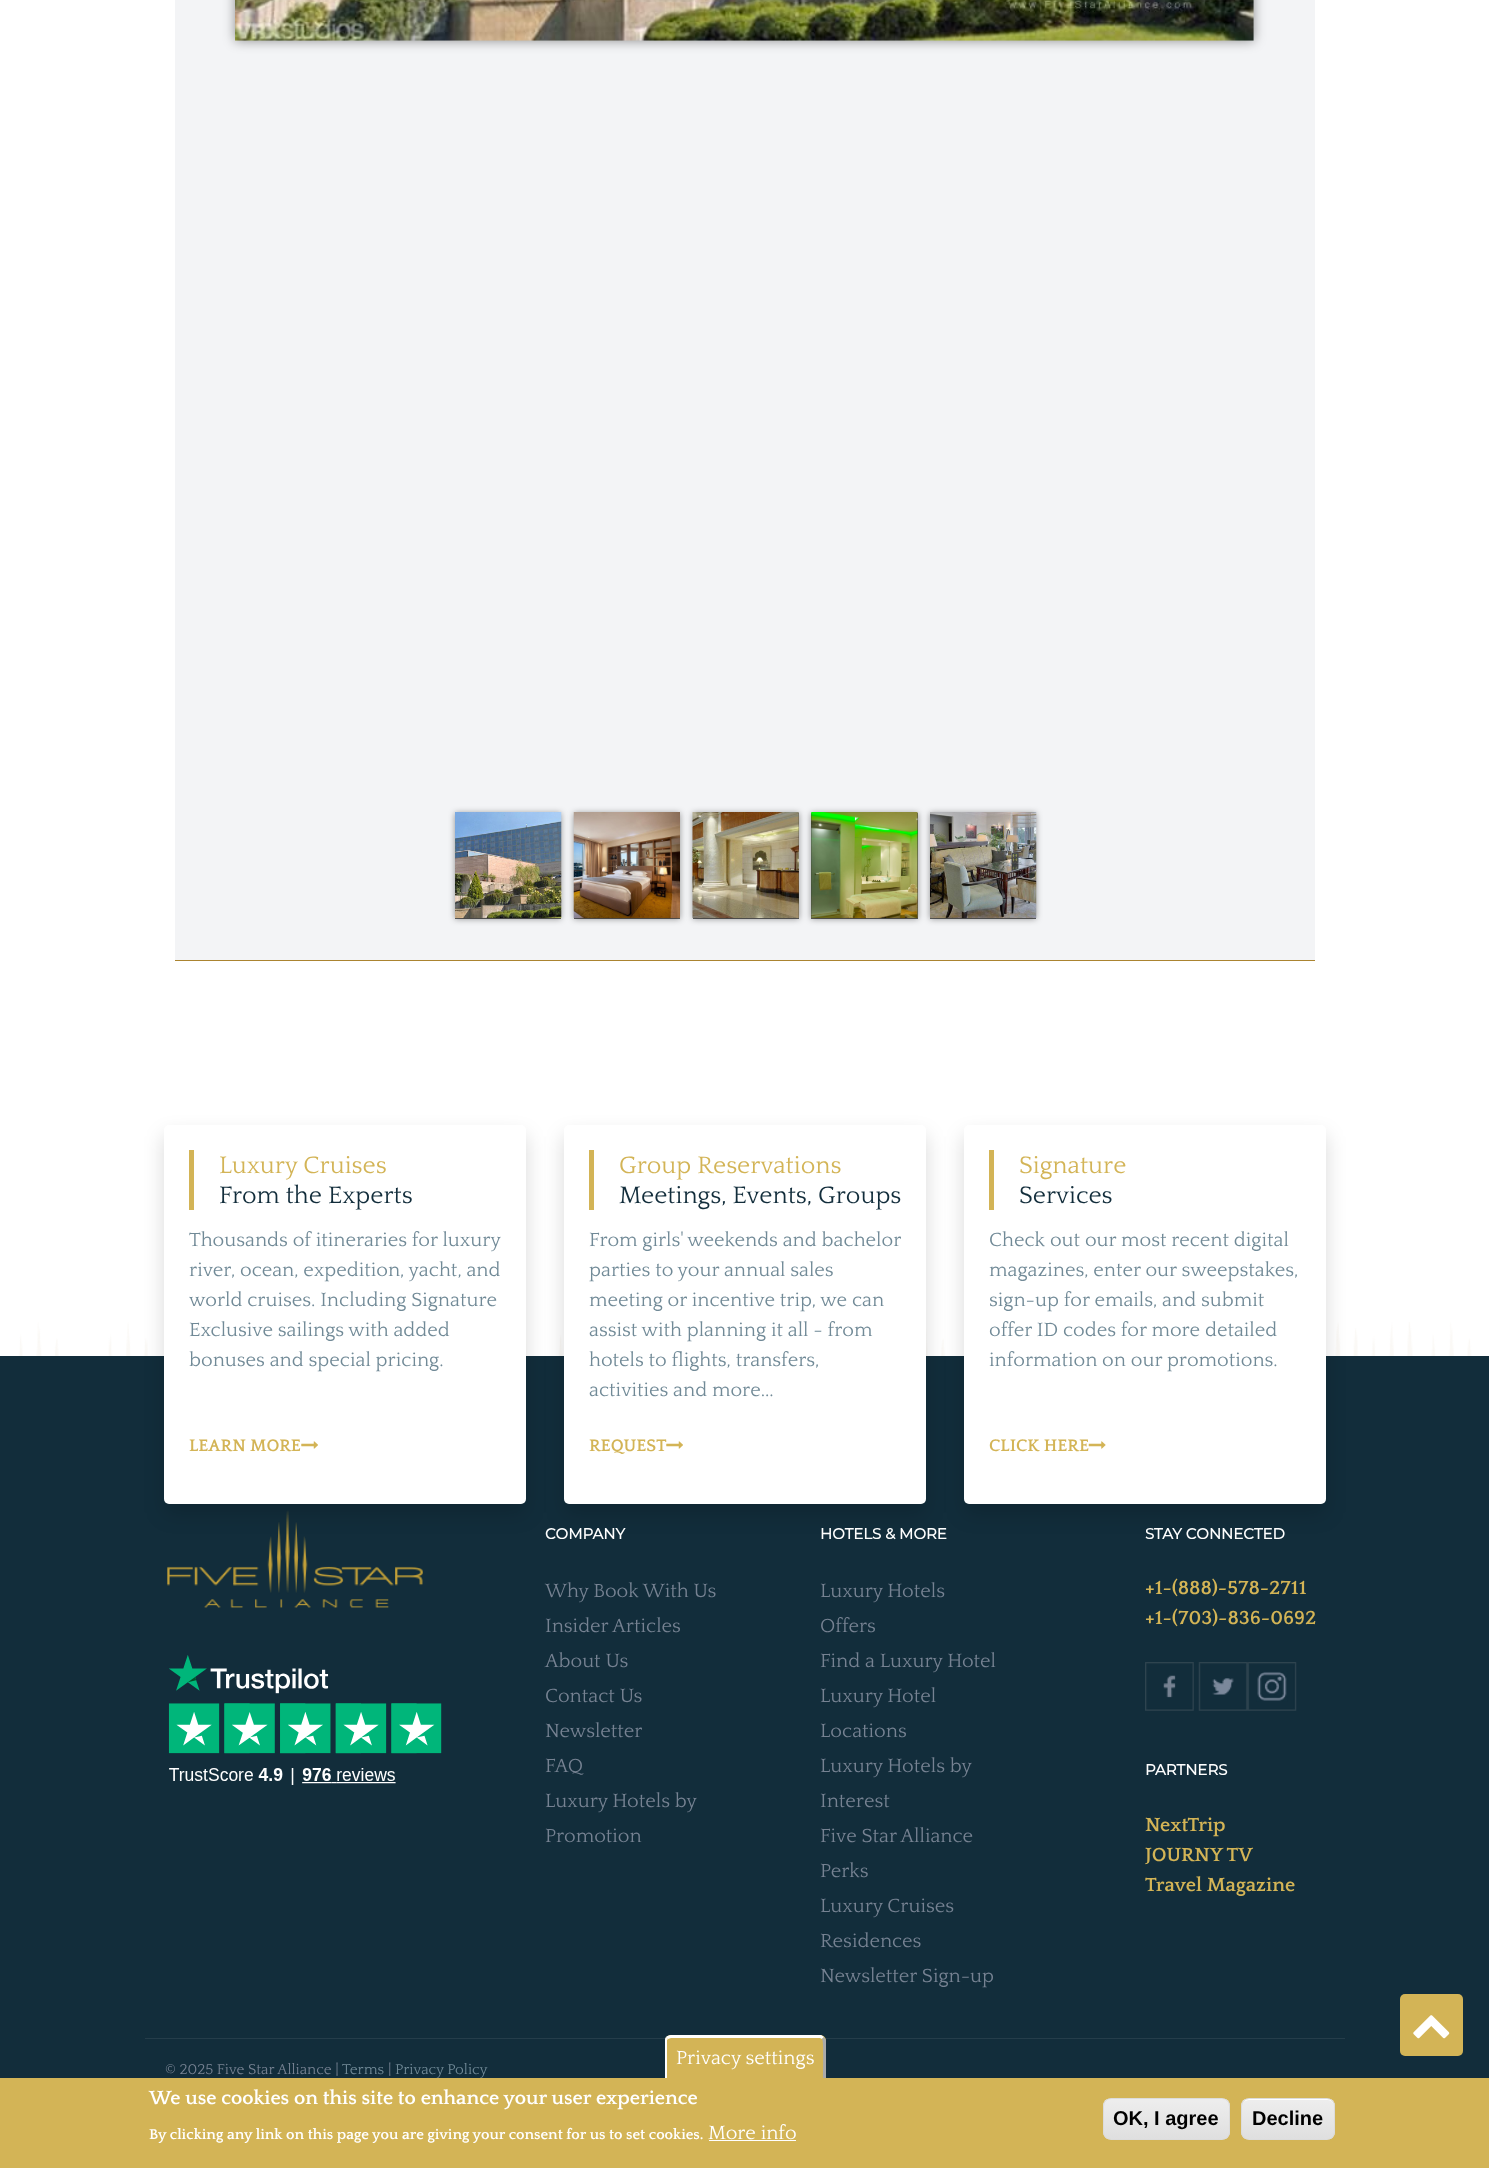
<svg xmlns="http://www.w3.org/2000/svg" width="1489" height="2168">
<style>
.a{font:25px Quattrocento;fill:#d3b456}
.b{font:25px Quattrocento;fill:#122d3b}
.c{font:20px Quattrocento;fill:#718a97}
.d{font:bold 17.5px Quattrocento;fill:#d3b456}
.e{font:bold 15px Montserrat;fill:#fff}
.f{font:20px Quattrocento;fill:#768292}
.g{font:bold 20px Quattrocento;fill:#d3b456}
.h{font:15px Quattrocento;fill:#768292}
.i{font:15px Quattrocento;fill:#718a97}
.j{font:20px Quattrocento;fill:#fff}
.k{font:bold 20px Quattrocento;fill:#fff}
.l{font:bold 15px Quattrocento;fill:#fff}
.m{font:bold 20px Liberation Sans;fill:#000}
</style>
<defs>
<clipPath id="clip1"><path d="M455 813h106v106H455z"/></clipPath>
<clipPath id="clip2"><path d="M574 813h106v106H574z"/></clipPath>
<clipPath id="clip3"><path d="M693 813h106v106H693z"/></clipPath>
<clipPath id="clip4"><path d="M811 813h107v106H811z"/></clipPath>
<clipPath id="clip5"><path d="M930 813h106v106H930z"/></clipPath>
<clipPath id="clip6"><rect x="1103" y="2098" width="127" height="42" rx="8"/></clipPath>
<linearGradient id="g1" gradientUnits="userSpaceOnUse" x1="1166" y1="2099" x2="1166" y2="2139"><stop offset="0.05" stop-color="#ededed"/><stop offset="1" stop-color="#dfdfdf"/></linearGradient>
<clipPath id="clip7"><rect x="1241" y="2098" width="94" height="42" rx="8"/></clipPath>
<linearGradient id="g2" gradientUnits="userSpaceOnUse" x1="1288" y1="2099" x2="1288" y2="2139"><stop offset="0.05" stop-color="#ededed"/><stop offset="1" stop-color="#dfdfdf"/></linearGradient>
</defs>
<rect width="100%" height="100%" fill="#fff"/>
<path fill="#f3f4f6" d="M175 0h1140v960H175z"/>
<path fill="#ab8430" d="M175 960h1140v1H175z"/>
<path fill="#00000066" filter="blur(6px)" d="M235 -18h1019v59H235z"/>
<image href="1.png" x="235" y="0" width="1019" height="41"/>
<path fill="#00000066" filter="blur(3px)" d="M455 813h106v106H455z"/>
<path fill="#00000080" d="M455 918h106v1H455z"/>
<g clip-path="url(#clip1)">
<path fill="#00000066" filter="blur(3px)" d="M400 813h216v106H400z"/>
</g>
<image href="2.png" x="455" y="812" width="107" height="107"/>
<path fill="#00000066" filter="blur(3px)" d="M574 813h106v106H574z"/>
<path fill="#00000080" d="M574 918h106v1H574z"/>
<g clip-path="url(#clip2)">
<path fill="#00000066" filter="blur(3px)" d="M548 813h158v106H548z"/>
</g>
<image href="3.png" x="573" y="812" width="107" height="107"/>
<path fill="#00000066" filter="blur(3px)" d="M693 813h106v106H693z"/>
<path fill="#00000080" d="M693 813h106v106H693z"/>
<g clip-path="url(#clip3)">
<path fill="#00000066" filter="blur(3px)" d="M631 813h230v106H631z"/>
</g>
<image href="4.png" x="692" y="812" width="107" height="107"/>
<path fill="#00000066" filter="blur(3px)" d="M811 813h107v106H811z"/>
<path fill="#00000080" d="M811 813h107v106H811z"/>
<g clip-path="url(#clip4)">
<path fill="#00000066" filter="blur(3px)" d="M785 813h159v106H785z"/>
</g>
<image href="5.png" x="811" y="812" width="107" height="107"/>
<path fill="#00000066" filter="blur(3px)" d="M930 813h106v106H930z"/>
<path fill="#00000080" d="M930 918h106v1H930z"/>
<g clip-path="url(#clip5)">
<path fill="#00000066" filter="blur(3px)" d="M870 813h226v106H870z"/>
</g>
<image href="6.png" x="930" y="812" width="107" height="107"/>
<path fill="#122d3b" d="M0 1356h1489v722H0z"/>
<image href="9.png" x="18" y="1322" width="1454" height="34"/>
<image href="10.png" x="167" y="1510" width="256" height="98"/>
<rect fill="#00000026" filter="blur(10px)" x="164" y="1135" width="362" height="379" rx="5"/>
<rect fill="#fff" x="164" y="1125" width="362" height="379" rx="5"/>
<path fill="#d3b456" d="M189 1150h5v60H189z"/>
<image href="7.png" x="301" y="1441" width="17" height="8"/>
<rect fill="#00000026" filter="blur(10px)" x="564" y="1135" width="362" height="379" rx="5"/>
<rect fill="#fff" x="564" y="1125" width="362" height="379" rx="5"/>
<path fill="#d3b456" d="M589 1150h5v60H589z"/>
<image href="7.png" x="666" y="1441" width="17" height="8"/>
<rect fill="#00000026" filter="blur(10px)" x="964" y="1135" width="362" height="379" rx="5"/>
<rect fill="#fff" x="964" y="1125" width="362" height="379" rx="5"/>
<path fill="#d3b456" d="M989 1150h5v60H989z"/>
<path fill="#253d4a" d="M145 2038h1200v1H145z"/>
<image href="11.png" x="168" y="1655" width="274" height="130"/>
<image href="12.png" x="1145" y="1662" width="49" height="49"/>
<image href="13.png" x="1198" y="1662" width="50" height="49"/>
<image href="14.png" x="1247" y="1662" width="50" height="49"/>
<rect fill="#d3b456" x="1400" y="1994" width="63" height="62" rx="5"/>
<image href="15.png" x="1413" y="2015" width="37" height="24"/>
<path fill="#d3b456" d="M0 2078h1489v90H0z"/>
<path fill="#d3b456" d="M671 2035h149c3.5 0 6 2.5 6 6v37h-161v-37c0-3.5 2.5-6 6-6z"/>
<path fill="#fff" d="M671 2035h150l3 2l-2 2l-2-1h-149l-3 1l-2-2c1-1 3-2 5-2z"/>
<path fill="#aaa" d="M823 2078c0-5 1-38-1-39l2-2l2 3v38z"/>
<path fill="#fff" d="M667 2078h-2v-37c0-1 0-3 1-4l2 2l-1 1z"/>
<path fill="#fff" d="M709 2140h87v1H709z"/>
<g clip-path="url(#clip6)">
<path fill="url(#g1)" d="M1103 2099h127v40H1103z"/>
</g>
<rect fill="none" stroke="#dcdcdc" x="1103.5" y="2098.5" width="126" height="41" rx="7.5"/>
<g clip-path="url(#clip7)">
<path fill="url(#g2)" d="M1241 2099h94v40H1241z"/>
</g>
<path fill="#fff" d="M1249 2100h79c3 0 6 3 6 6v-1c0-3-3-6-6-6h-79c-2 0-4 1-5 3c1-1 3-2 5-2z"/>
<rect fill="none" stroke="#dcdcdc" x="1241.5" y="2098.5" width="93" height="41" rx="7.5"/>
<text class="a" x="219" y="1173">Luxury Cruises</text>
<text class="b" x="219" y="1203">From the Experts</text>
<text class="c" x="189" y="1246">Thousands of itineraries for luxury</text>
<text class="c" x="189" y="1276">river, ocean, expedition, yacht, and</text>
<text class="c" x="189" y="1306">world cruises. Including Signature</text>
<text class="c" x="189" y="1336">Exclusive sailings with added</text>
<text class="c" x="189" y="1366">bonuses and special pricing.</text>
<text class="d" x="189" y="1451">LEARN MORE</text>
<text class="a" x="619" y="1173">Group Reservations</text>
<text class="b" x="619" y="1203">Meetings, Events, Groups</text>
<text class="c" x="589" y="1246">From girls' weekends and bachelor</text>
<text class="c" x="589" y="1276">parties to your annual sales</text>
<text class="c" x="589" y="1306">meeting or incentive trip, we can</text>
<text class="c" x="589" y="1336">assist with planning it all - from</text>
<text class="c" x="589" y="1366">hotels to flights, transfers,</text>
<text class="c" x="589" y="1396">activities and more...</text>
<text class="d" x="589" y="1451">REQUEST</text>
<text class="a" x="1019" y="1173">Signature</text>
<text class="b" x="1019" y="1203">Services</text>
<text class="c" x="989" y="1246">Check out our most recent digital</text>
<text class="c" x="989" y="1276">magazines, enter our sweepstakes,</text>
<text class="c" x="989" y="1306">sign-up for emails, and submit</text>
<text class="c" x="989" y="1336">offer ID codes for more detailed</text>
<text class="c" x="989" y="1366">information on our promotions.</text>
<text class="d" x="989" y="1451">CLICK HERE</text>
<image href="8.png" x="1088" y="1441" width="18" height="8"/>
<text class="e" x="545" y="1539">COMPANY</text>
<text class="f" x="545" y="1597">Why Book With Us</text>
<text class="f" x="545" y="1632">Insider Articles</text>
<text class="f" x="545" y="1667">About Us</text>
<text class="f" x="545" y="1702">Contact Us</text>
<text class="f" x="545" y="1737">Newsletter</text>
<text class="f" x="545" y="1772">FAQ</text>
<text class="f" x="545" y="1807">Luxury Hotels by</text>
<text class="f" x="545" y="1842">Promotion</text>
<text class="e" x="820" y="1539">HOTELS &amp; MORE</text>
<text class="f" x="820" y="1597">Luxury Hotels</text>
<text class="f" x="820" y="1632">Offers</text>
<text class="f" x="820" y="1667">Find a Luxury Hotel</text>
<text class="f" x="820" y="1702">Luxury Hotel</text>
<text class="f" x="820" y="1737">Locations</text>
<text class="f" x="820" y="1772">Luxury Hotels by</text>
<text class="f" x="820" y="1807">Interest</text>
<text class="f" x="820" y="1842">Five Star Alliance</text>
<text class="f" x="820" y="1877">Perks</text>
<text class="f" x="820" y="1912">Luxury Cruises</text>
<text class="f" x="820" y="1947">Residences</text>
<text class="f" x="820" y="1982">Newsletter Sign-up</text>
<text class="e" x="1145" y="1539">STAY CONNECTED</text>
<text class="g" x="1145" y="1594">+1-(888)-578-2711</text>
<text class="g" x="1145" y="1624">+1-(703)-836-0692</text>
<text class="e" x="1145" y="1775">PARTNERS</text>
<text class="g" x="1145" y="1831">NextTrip</text>
<text class="g" x="1145" y="1861">JOURNY TV</text>
<text class="g" x="1145" y="1891">Travel Magazine</text>
<text class="h" x="165" y="2074">© 2025 Five Star Alliance |</text>
<text class="i" x="342" y="2074">Terms</text>
<text class="h" x="388" y="2074">|</text>
<text class="i" x="395" y="2074">Privacy Policy</text>
<text class="j" x="676" y="2064">Privacy settings</text>
<text class="k" x="149" y="2104">We use cookies on this site to enhance your user experience</text>
<text class="l" x="149" y="2139">By clicking any link on this page you are giving your consent for us to set cookies.</text>
<text class="j" x="708" y="2139">More info</text>
<text class="m" x="1113" y="2125">OK, I agree</text>
<text class="m" x="1252" y="2125">Decline</text>
</svg>
